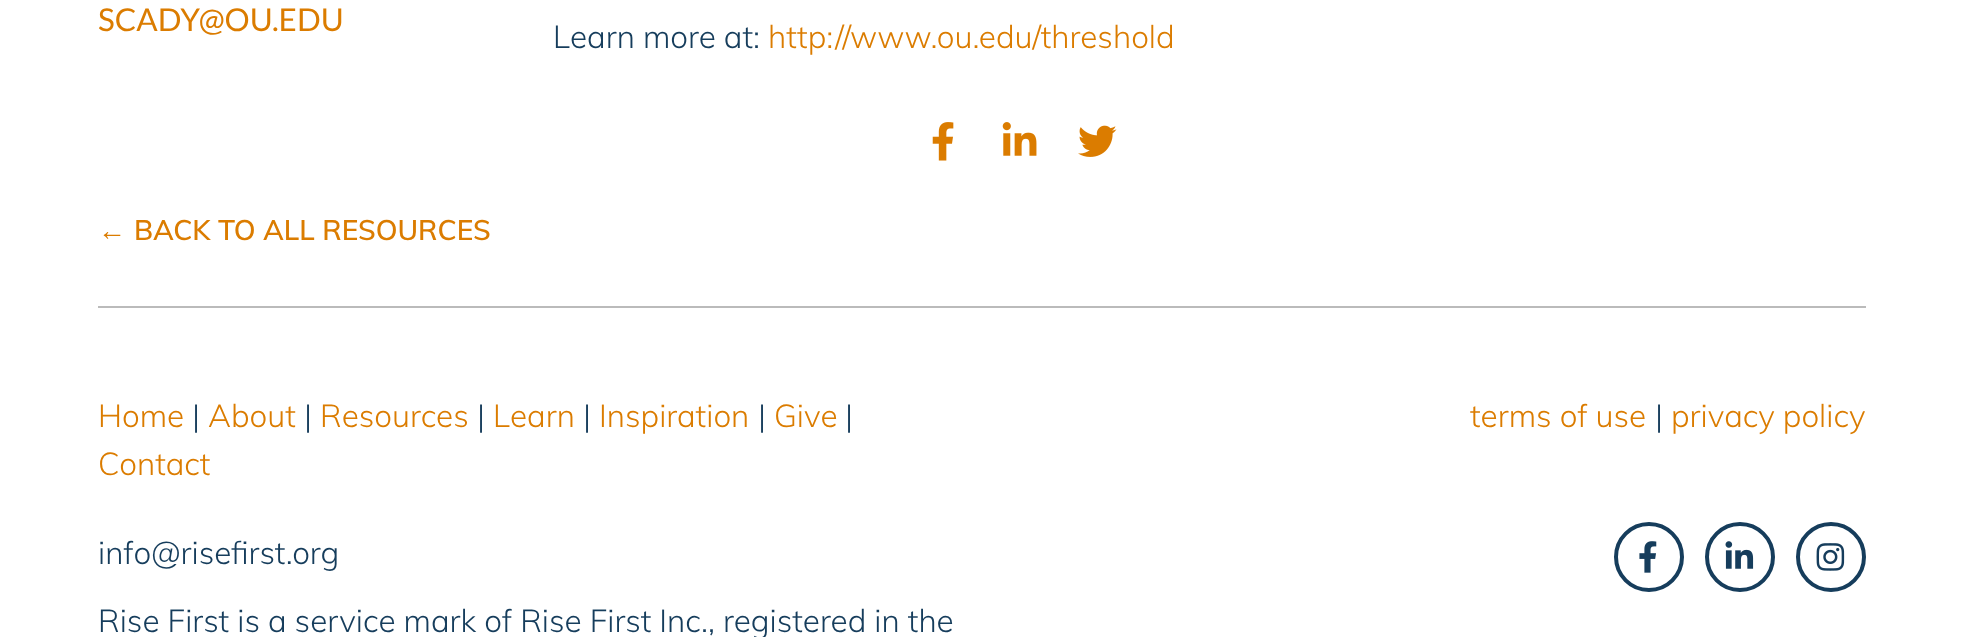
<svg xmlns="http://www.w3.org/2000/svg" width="1963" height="637">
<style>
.a{font:31.5px Lato;fill:#db7c00}
.b{font:300 31.5px Muli;fill:#163d5c}
.c{font:300 31.5px Muli;fill:#db7c00}
.d{font:28px Liberation Sans;fill:#db7c00}
.e{font:600 28px Muli;fill:#db7c00}
</style>
<rect width="100%" height="100%" fill="#fff"/>
<image href="1.png" x="932" y="122" width="22" height="39"/>
<image href="2.png" x="1002" y="122" width="35" height="34"/>
<image href="3.png" x="1078" y="125" width="39" height="32"/>
<path fill="#bbb" d="M98 306h1768v2H98z"/>
<circle fill="none" stroke="#163d5c" stroke-width="4" cx="1649" cy="557" r="33"/>
<image href="4.png" x="1639" y="541" width="18" height="32"/>
<circle fill="none" stroke="#163d5c" stroke-width="4" cx="1740" cy="557" r="33"/>
<image href="5.png" x="1725" y="541" width="29" height="28"/>
<circle fill="none" stroke="#163d5c" stroke-width="4" cx="1831" cy="557" r="33"/>
<image href="6.png" x="1816" y="543" width="29" height="28"/>
<text class="a" x="98" y="31">SCADY@OU.EDU</text>
<text class="b" x="553" y="48">Learn more at:</text>
<text class="c" x="768" y="48">http://www.ou.edu/threshold</text>
<text class="d" x="98" y="240">←</text>
<text class="e" x="134" y="240">BACK TO ALL RESOURCES</text>
<text class="c" x="98" y="427">Home</text>
<text class="b" x="192" y="427">|</text>
<text class="c" x="208" y="427">About</text>
<text class="b" x="304" y="427">|</text>
<text class="c" x="320" y="427">Resources</text>
<text class="b" x="477" y="427">|</text>
<text class="c" x="493" y="427">Learn</text>
<text class="b" x="583" y="427">|</text>
<text class="c" x="599" y="427">Inspiration</text>
<text class="b" x="758" y="427">|</text>
<text class="c" x="774" y="427">Give</text>
<text class="b" x="845" y="427">|</text>
<text class="c" x="98" y="475">Contact</text>
<text class="c" x="1470" y="427">terms of use</text>
<text class="b" x="1655" y="427">|</text>
<text class="c" x="1671" y="427">privacy policy</text>
<text class="b" x="98" y="564">info@risefirst.org</text>
<text class="b" x="98" y="632">Rise First is a service mark of Rise First Inc., registered in the</text>
</svg>
